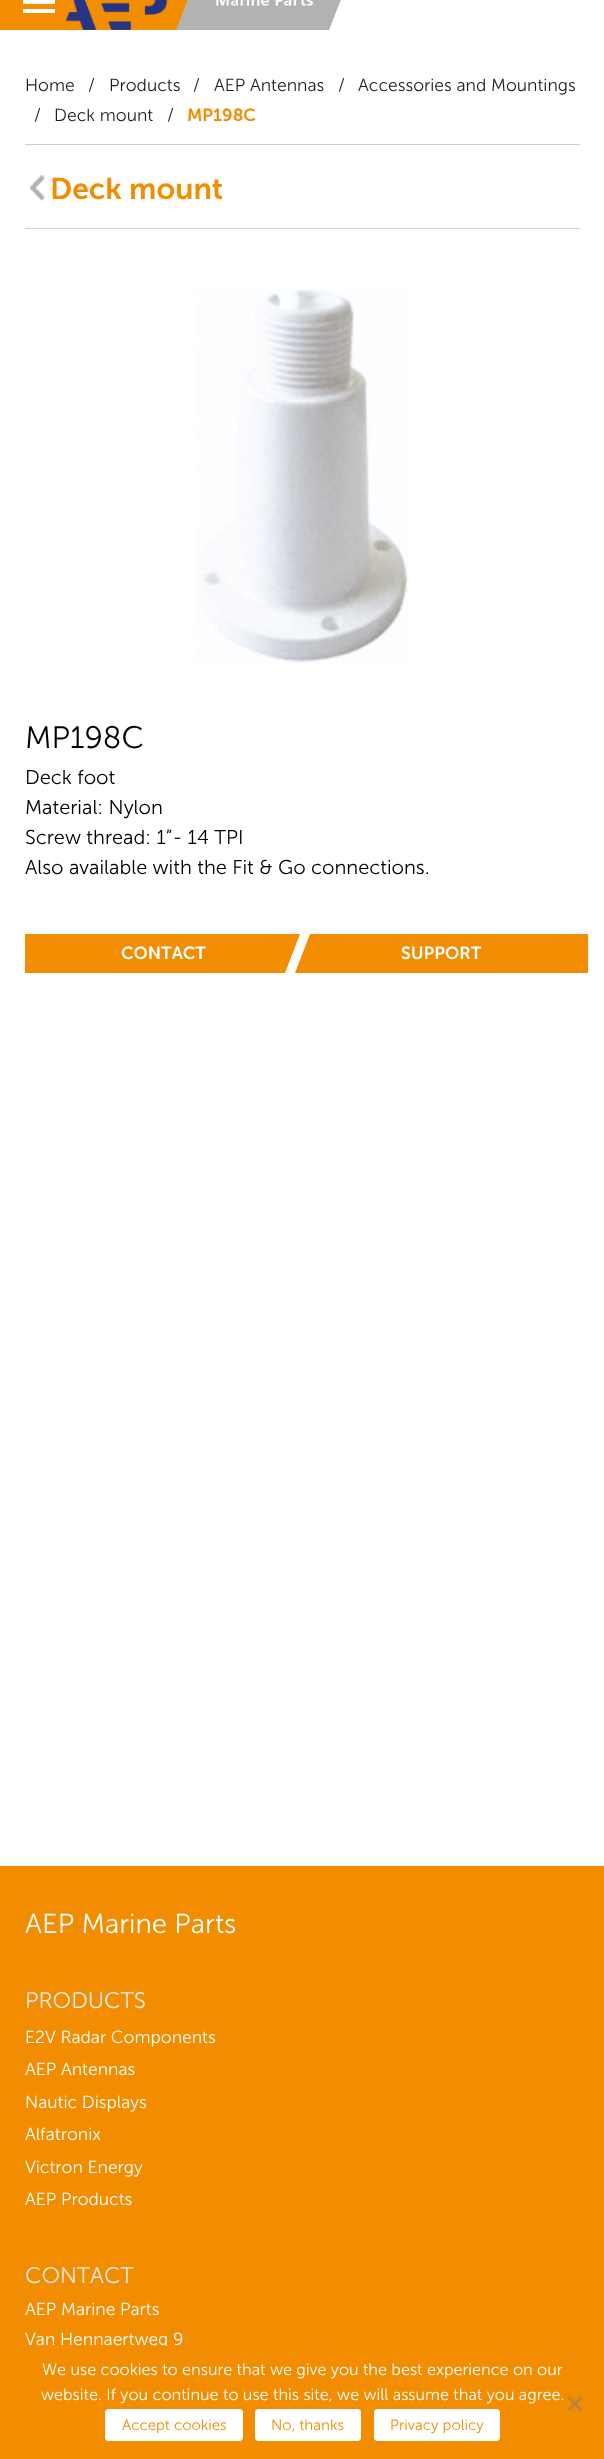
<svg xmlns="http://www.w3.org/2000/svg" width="604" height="2459">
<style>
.a{font:17.5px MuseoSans;fill:#1d1d1b}
.b{font:bold 17.5px MuseoSans;fill:#f28c00}
.c{font:bold 30px MuseoSans;fill:#f28c00}
.d{font:31px MuseoSans;fill:#000}
.e{font:20px MuseoSans;fill:#000}
.f{font:bold 17.5px MuseoSans;fill:#fff}
.g{font:27.5px MuseoSans;fill:#fff}
.h{font:22.5px MuseoSans;fill:#eee}
.i{font:17.5px MuseoSans;fill:#fff}
.j{font:16.25px MuseoSans;fill:#fff}
.k{font:15px MuseoSans;fill:#f28c00}
</style>
<rect width="100%" height="100%" fill="#fff"/>
<path fill="#f28c00" d="M0 0h94v30H0z"/>
<path fill="#fff" d="M23 0h32v4H23z"/>
<path fill="#fff" d="M23 9h32v4H23z"/>
<image href="1.png" x="65" y="0" width="123" height="30"/>
<path fill="#b3b2b2" d="M201 0h116v30H201z"/>
<path fill="#b3b2b2" d="M200-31h24l-23 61h-25z"/>
<path fill="#b3b2b2" d="M328-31h25l-24 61h-24z"/>
<image href="2.png" x="216" y="0" width="97" height="6"/>
<path fill="#cececd" d="M25 144h555v1H25z"/>
<path fill="#cececd" d="M25 228h555v1H25z"/>
<image href="3.png" x="30" y="175" width="15" height="26"/>
<image href="4.png" x="196" y="289" width="213" height="374"/>
<path fill="#f28c00" d="M25 934h275v39H25z"/>
<path fill="#f28c00" d="M300 934h288l-16 39h-287z"/>
<path fill="#fff" d="M300 934h10l-15 39h-10z"/>
<path fill="#f28c00" d="M572 934h16v39H572z"/>
<path fill="#f28c00" d="M0 1866h604v480H0z"/>
<text class="a" x="25" y="91">Home</text>
<text class="a" x="88" y="91">/</text>
<text class="a" x="109" y="91">Products</text>
<text class="a" x="193" y="91">/</text>
<text class="a" x="214" y="91">AEP Antennas</text>
<text class="a" x="338" y="91">/</text>
<text class="a" x="358" y="91">Accessories and Mountings</text>
<text class="a" x="34" y="121">/</text>
<text class="a" x="54" y="121">Deck mount</text>
<text class="a" x="167" y="121">/</text>
<text class="b" x="187" y="121">MP198C</text>
<text class="c" x="50" y="199">Deck mount</text>
<text class="d" x="25" y="748">MP198C</text>
<text class="e" x="25" y="784">Deck foot</text>
<text class="e" x="25" y="814">Material: Nylon</text>
<text class="e" x="25" y="844">Screw thread: 1”- 14 TPI</text>
<text class="e" x="25" y="874">Also available with the Fit &amp; Go connections.</text>
<text class="f" x="121" y="959">CONTACT</text>
<text class="f" x="401" y="959">SUPPORT</text>
<text class="g" x="25" y="1933">AEP Marine Parts</text>
<text class="h" x="25" y="2008">PRODUCTS</text>
<text class="i" x="25" y="2043">E2V Radar Components</text>
<text class="i" x="25" y="2075">AEP Antennas</text>
<text class="i" x="25" y="2108">Nautic Displays</text>
<text class="i" x="25" y="2140">Alfatronix</text>
<text class="i" x="25" y="2173">Victron Energy</text>
<text class="i" x="25" y="2205">AEP Products</text>
<text class="h" x="25" y="2283">CONTACT</text>
<text class="i" x="25" y="2315">AEP Marine Parts</text>
<text class="i" x="25" y="2345">Van Hennaertweg 9</text>
<path fill="#f28c00" d="M0 2346h604v113H0z"/>
<text class="j" x="42" y="2375">We use cookies to ensure that we give you the best experience on our</text>
<text class="j" x="41" y="2400">website. If you continue to use this site, we will assume that you agree.</text>
<path fill="#b98640" d="M580.5 2396l2 2l-13 13.5l-2-2z"/>
<path fill="#b98640" d="M567.5 2398l2-2l13 13.5l-2 2z"/>
<rect fill="#fff" x="105" y="2409" width="138" height="32" rx="4"/>
<path fill="#fff" d="M109 2411h130c1 0 2 1 2 3v-2c0-1-1-2-3-2h-130c-1 0-2 1-2 2v2c0-2 1-3 3-3z"/>
<rect fill="none" stroke="#fff" x="105.5" y="2409.5" width="137" height="31" rx="3.5"/>
<text class="k" x="122" y="2430">Accept cookies</text>
<rect fill="#fff" x="255" y="2409" width="106" height="32" rx="4"/>
<path fill="#fff" d="M259 2411h99c1 0 2 1 2 3v-2c0-1-1-2-2-2h-100c-1 0-2 1-2 2v2c0-2 1-3 3-3z"/>
<rect fill="none" stroke="#fff" x="255.5" y="2409.5" width="105" height="31" rx="3.5"/>
<text class="k" x="271" y="2430">No, thanks</text>
<rect fill="#fff" x="374" y="2409" width="126" height="32" rx="4"/>
<path fill="#fff" d="M378 2411h118c2 0 3 1 3 3v-2c0-1-1-2-3-2h-118c-2 0-3 1-3 2v2c0-2 1-3 3-3z"/>
<rect fill="none" stroke="#fff" x="374.5" y="2409.5" width="125" height="31" rx="3.5"/>
<text class="k" x="390" y="2430">Privacy policy</text>
</svg>
